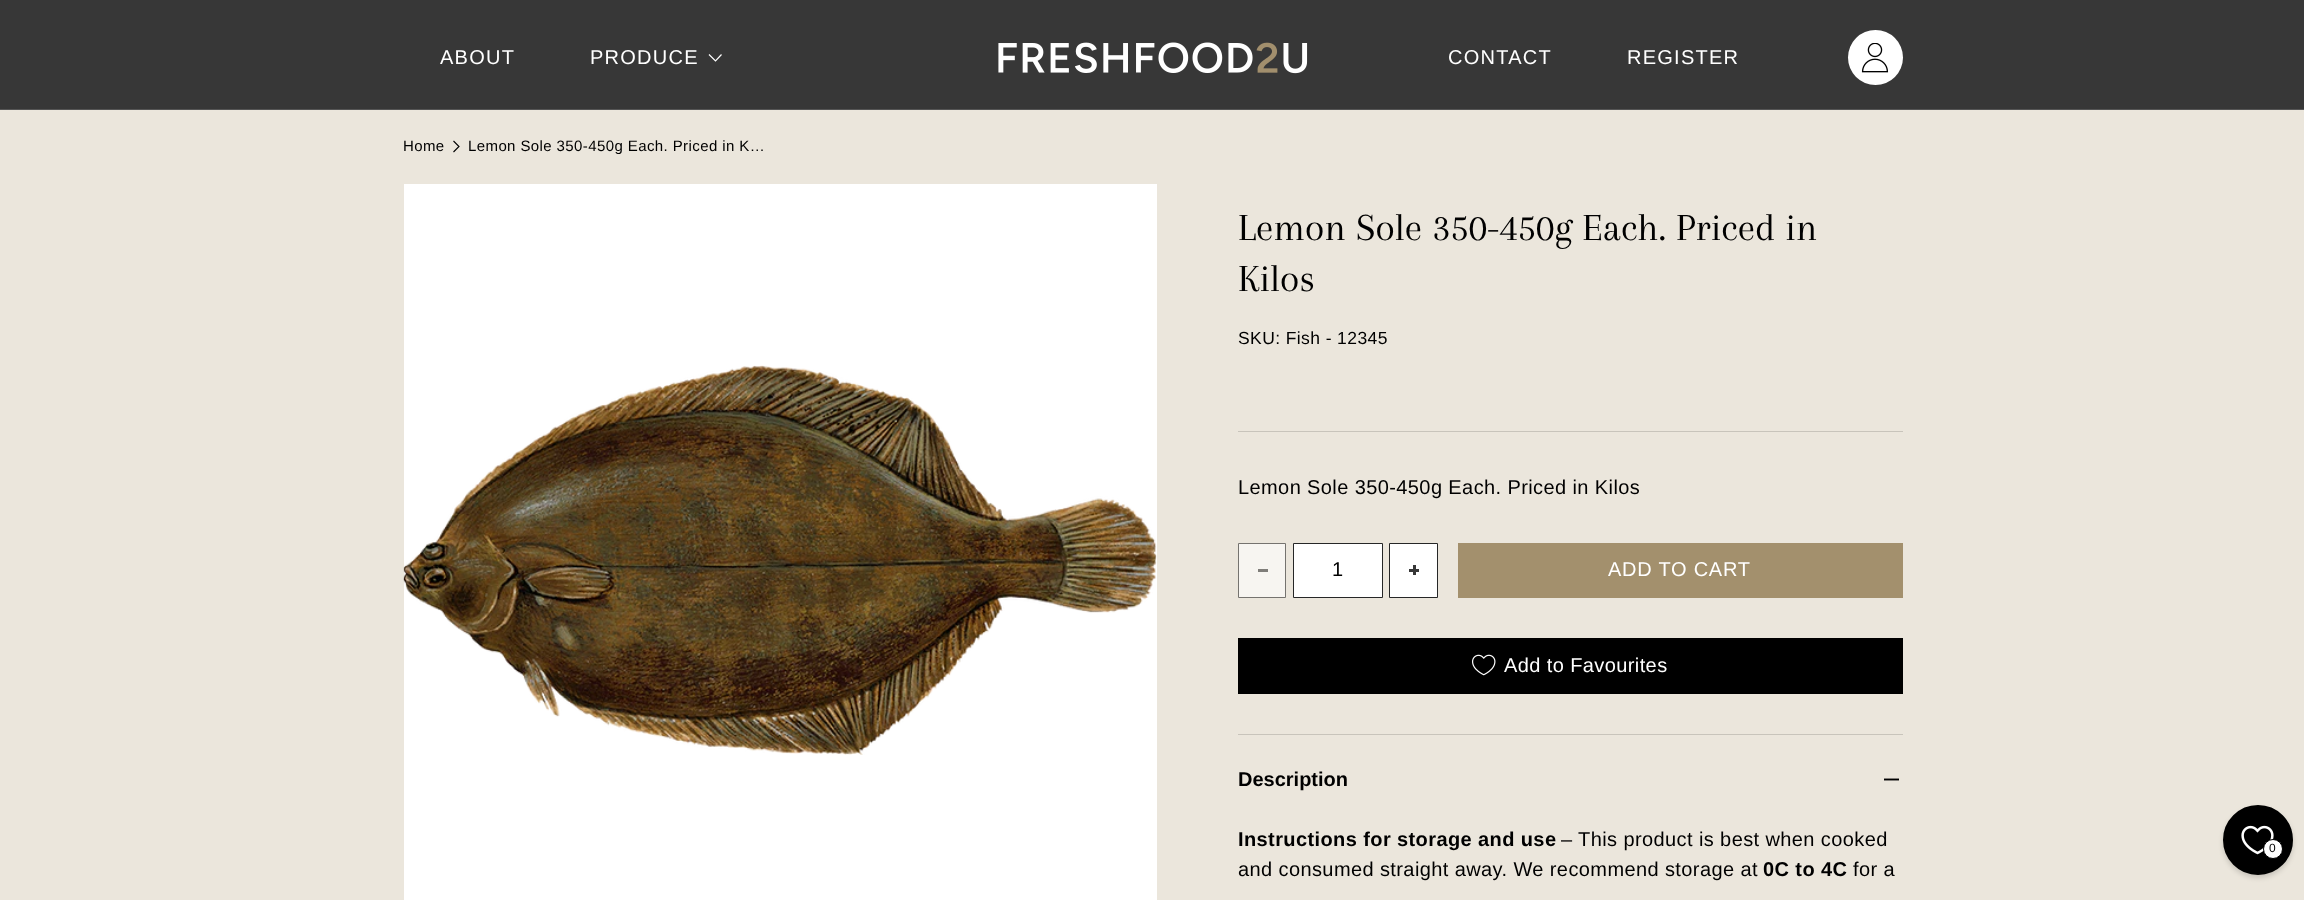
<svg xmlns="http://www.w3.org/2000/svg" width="2304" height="900">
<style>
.a{font:20px Liberation Sans;letter-spacing:1.25px;fill:#fff}
.b{font:15px Liberation Sans;letter-spacing:0.4px;fill:#000}
.c{font:39.6px Arapey;fill:#000}
.d{font:17.5px Liberation Sans;letter-spacing:0.4px;fill:#000}
.e{font:20px Liberation Sans;letter-spacing:0.4px;fill:#000}
.f{font:20px Liberation Sans;fill:#000}
.g{font:20px Liberation Sans;letter-spacing:0.75px;fill:#fff}
.h{font:20px Liberation Sans;letter-spacing:0.4px;fill:#fff}
.i{font:bold 20px Liberation Sans;fill:#000}
.j{font:bold 20px Liberation Sans;letter-spacing:0.4px;fill:#000}
.k{font:12px Liberation Sans;letter-spacing:0.4px;fill:#000}
</style>
<defs>
<linearGradient id="g1" gradientUnits="userSpaceOnUse" x1="600" y1="412" x2="1870" y2="728"><stop offset="0.6" stop-color="#b7a88c"/><stop offset="0.6" stop-color="#a3906d"/><stop offset="1" stop-color="#a3906d"/></linearGradient>
</defs>
<rect width="100%" height="100%" fill="#ebe6dc"/>
<path fill="#373737" d="M0 0h2304v109H0z"/>
<path fill="none" stroke="#fff" stroke-width="1.2" d="M721.5 54.5l-6 6.5l-6.5-6.5"/>
<image href="1.png" x="998" y="42" width="310" height="32"/>
<circle fill="#fff" cx="1875.5" cy="57.5" r="27.5"/>
<image href="2.png" x="1861" y="43" width="28" height="30"/>
<path fill="#555" d="M0 109h2304v1H0z"/>
<path fill="none" stroke="#000" stroke-width="1.1" d="M453.5 141l5.5 5.5l-5.5 5.5"/>
<path fill="#fff" d="M404 184h753v716H404z"/>
<image href="3.png" x="403" y="365" width="754" height="390"/>
<path fill="#c8c4bb" d="M1238 431h665v1H1238z"/>
<path fill="#f7f5f1" stroke="#75736f" d="M1238.5 543.5h47v54H1238.5z"/>
<path fill="#7f7d79" d="M1258 569h10v3H1258z"/>
<path fill="#fff" stroke="#262727" d="M1293.5 543.5h89v54H1293.5z"/>
<path fill="#fff" stroke="#262727" d="M1389.5 543.5h48v54H1389.5z"/>
<path fill="#373737" d="M1409 569h10v3H1409z"/>
<path fill="#373737" d="M1413 565h3v10H1413z"/>
<path fill="url(#g1)" d="M1458 543h445v55H1458z"/>
<path fill="#000" d="M1238 638h665v56H1238z"/>
<image href="4.png" x="1472" y="654" width="24" height="22"/>
<path fill="#c8c4bb" d="M1238 734h665v1H1238z"/>
<path fill="none" stroke="#000" stroke-width="1.9" d="M1884 779.5h15"/>
<rect fill="#00000026" filter="blur(2.5px)" x="2223" y="808" width="70" height="70" rx="35"/>
<circle fill="#000" stroke="#000" stroke-width="3" cx="2258" cy="840" r="33.5"/>
<image href="5.png" x="2241" y="825" width="33" height="30"/>
<circle fill="#fff" stroke="#000" cx="2273" cy="849" r="9.5"/>
<text class="a" x="440" y="64">ABOUT</text>
<text class="a" x="590" y="64">PRODUCE</text>
<text class="a" x="1448" y="64">CONTACT</text>
<text class="a" x="1627" y="64">REGISTER</text>
<text class="b" x="403" y="151">Home</text>
<text class="b" x="468" y="151">Lemon Sole 350-450g Each. Priced in K…</text>
<text class="c" x="1238" y="240">Lemon Sole 350-450g Each. Priced in</text>
<text class="c" x="1238" y="291">Kilos</text>
<text class="d" x="1238" y="344">SKU: Fish - 12345</text>
<text class="e" x="1238" y="494">Lemon Sole 350-450g Each. Priced in Kilos</text>
<text class="f" x="1332" y="576">1</text>
<text class="g" x="1608" y="576">ADD TO CART</text>
<text class="h" x="1504" y="672">Add to Favourites</text>
<text class="i" x="1238" y="786">Description</text>
<text class="j" x="1238" y="846">Instructions for storage and use</text>
<text class="e" x="1561" y="846">– This product is best when cooked</text>
<text class="e" x="1238" y="876">and consumed straight away. We recommend storage at</text>
<text class="j" x="1763" y="876">0C to 4C</text>
<text class="e" x="1853" y="876">for a</text>
<text class="k" x="2269" y="852">0</text>
</svg>
